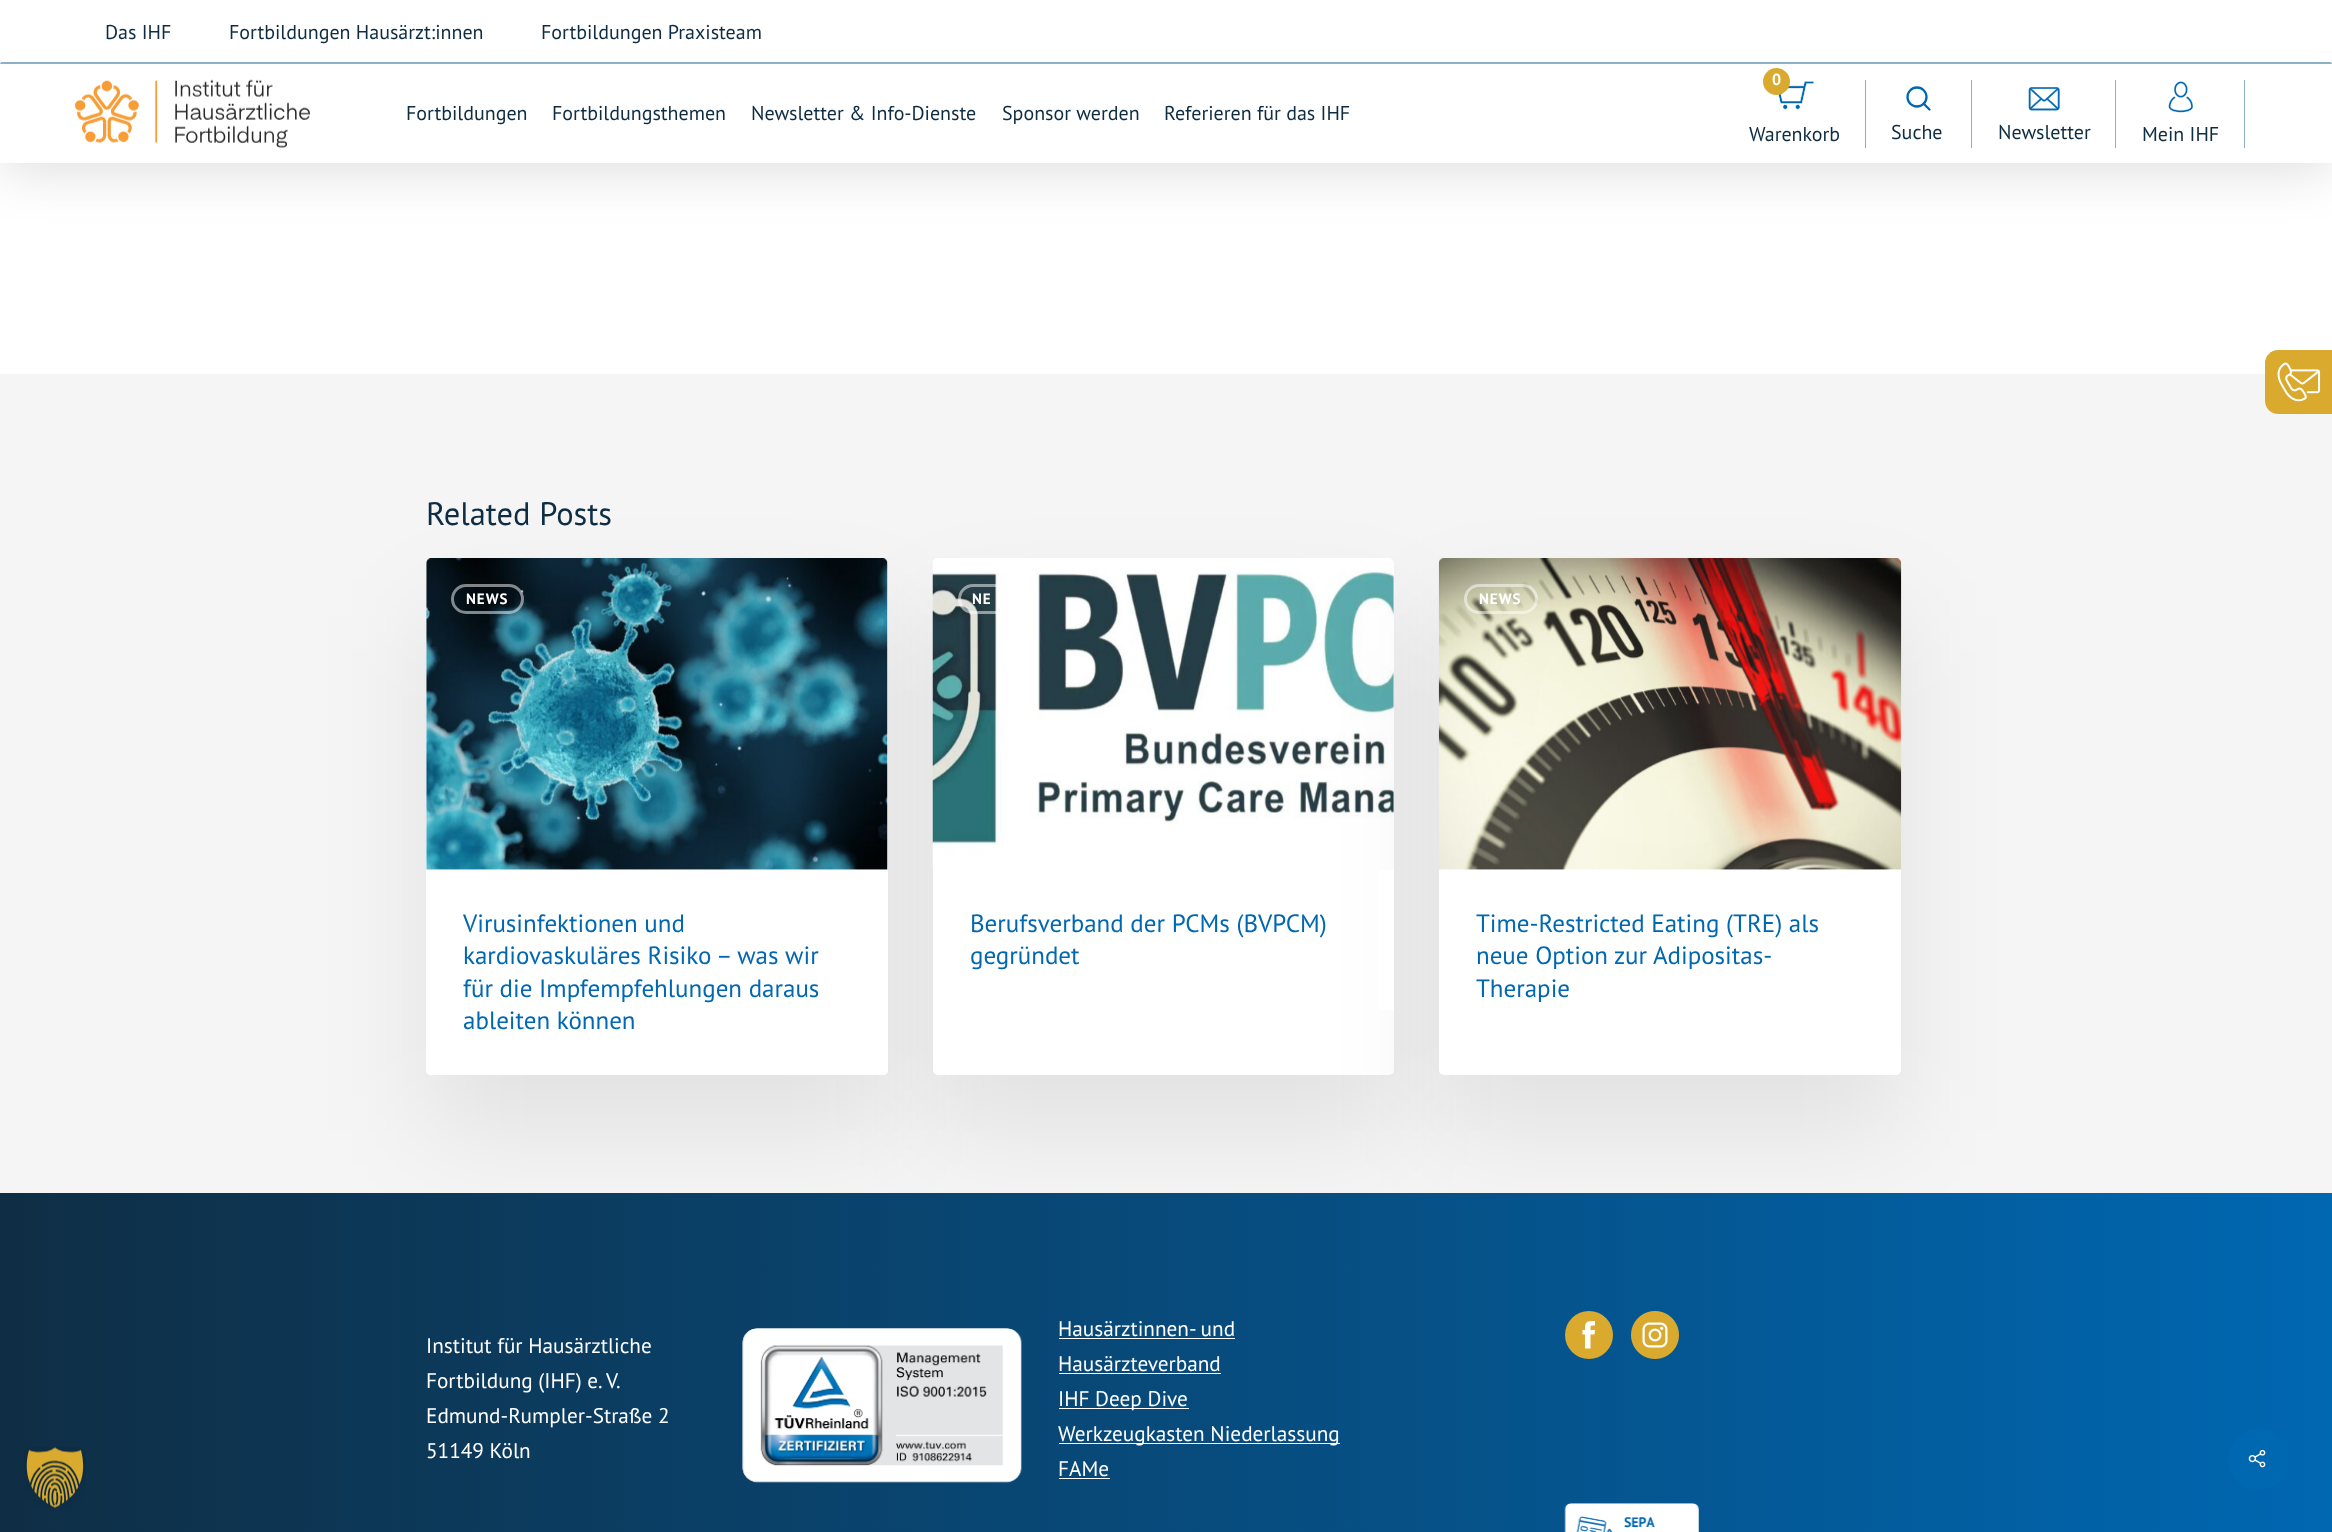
<svg xmlns="http://www.w3.org/2000/svg" width="2332" height="1532">
<style>
.a{font:20px PT Sans;fill:#0e2c42}
.b{font:bold 16px PT Sans;fill:#fff}
.c{font:32.5px PT Sans;fill:#0e2c42}
.d{font:bold 15px PT Sans;letter-spacing:1px;fill:#fff}
.e{font:25px PT Sans;fill:#0067b1}
.f{font:21.25px PT Sans;fill:#fff}
</style>
<defs>
<linearGradient id="g1" gradientUnits="userSpaceOnUse" x1="0" y1="1443" x2="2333" y2="1443"><stop offset="0" stop-color="#0f2e45"/><stop offset="1" stop-color="#0067b1"/></linearGradient>
</defs>
<rect width="100%" height="100%" fill="#fff"/>
<path fill="#f5f5f5" d="M0 374h2332v819H0z"/>
<rect fill="#00000014" filter="blur(53px)" x="426" y="615" width="462" height="516" rx="5"/>
<rect fill="#fff" x="426" y="559" width="462" height="516" rx="5"/>
<image href="7.png" x="426" y="558" width="462" height="312"/>
<rect fill="#00000014" filter="blur(53px)" x="933" y="615" width="461" height="516" rx="5"/>
<rect fill="#fff" x="933" y="559" width="461" height="516" rx="5"/>
<image href="8.png" x="932" y="558" width="462" height="311"/>
<rect fill="#00000014" filter="blur(53px)" x="1439" y="615" width="462" height="516" rx="5"/>
<path fill="url(#g1)" d="M0 1193h2332v339H0z"/>
<image href="1.png" x="24" y="1447" width="62" height="61"/>
<path fill="#00000026" filter="blur(28px)" d="M0 4h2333v162H0z"/>
<path fill="#fff" d="M0 0h2332v163H0z"/>
<path fill="#8db0c9" d="M2332 64h-2332l1-2h2330z"/>
<image href="2.png" x="75" y="79" width="235" height="69"/>
<path fill="#8db0c9" d="M1865 80h1v68H1865z"/>
<image href="3.png" x="1778" y="81" width="36" height="29"/>
<circle fill="#d9aa2e" cx="1776.5" cy="81.5" r="13.5"/>
<path fill="#8db0c9" d="M1971 80h1v68H1971z"/>
<circle fill="none" stroke="#0067b1" stroke-width="2.3" cx="1917" cy="97" r="9.5"/>
<path fill="none" stroke="#0067b1" stroke-width="2.3" stroke-linecap="round" stroke-linejoin="round" d="M1923.5 103.5l6 6"/>
<path fill="#8db0c9" d="M2115 80h1v68H2115z"/>
<image href="4.png" x="2028" y="87" width="32" height="24"/>
<path fill="#8db0c9" d="M2244 80h1v68H2244z"/>
<image href="5.png" x="2168" y="81" width="25" height="32"/>
<path fill="#d9aa2e" d="M2278 350h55v64h-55c-7 0-13-6-13-13v-38c0-7 6-13 13-13z"/>
<image href="6.png" x="2277" y="362" width="44" height="40"/>
<rect fill="none" stroke="#ffffff80" stroke-width="3" x="452.5" y="585.5" width="70" height="27" rx="13.5"/>
<path fill="#fff" d="M426 870h462v200c0 3-2 5-5 5h-452c-3 0-5-2-5-5z"/>
<rect fill="none" stroke="#ffffff80" stroke-width="3" x="959.5" y="585.5" width="70" height="27" rx="13.5"/>
<path fill="#fff" d="M1378 870h16v140H1378z"/>
<rect fill="#fff" x="1439" y="559" width="462" height="516" rx="5"/>
<image href="9.png" x="1438" y="558" width="464" height="312"/>
<rect fill="none" stroke="#ffffff80" stroke-width="3" x="1465.5" y="585.5" width="71" height="27" rx="13.5"/>
<image href="10.png" x="742" y="1328" width="280" height="155"/>
<path fill="#fff" d="M1059 1338h176v1H1059z"/>
<path fill="#fff" d="M1059 1373h162v1H1059z"/>
<path fill="#fff" d="M1059 1408h130v1H1059z"/>
<path fill="#fff" d="M1059 1443h281v1H1059z"/>
<path fill="#fff" d="M1059 1478h51v1H1059z"/>
<circle fill="#d9aa2e" cx="1589" cy="1335" r="24"/>
<path fill="#fff" d="M1594.5 1334.5h-4v14h-5.5v-14h-2.5v-4.5h2.5c0-9 1.5-9 10-9v4.5c-4.5 0-4.5-.5-4.5 4.5h4.5z"/>
<image href="11.png" x="1631" y="1311" width="48" height="48"/>
<image href="12.png" x="1564" y="1503" width="135" height="29"/>
<circle fill="#0067b1" cx="2259" cy="1459" r="31"/>
<image href="13.png" x="2248" y="1449" width="18" height="19"/>
<text class="a" x="105" y="39">Das IHF</text>
<text class="a" x="229" y="39">Fortbildungen Hausärzt:innen</text>
<text class="a" x="541" y="39">Fortbildungen Praxisteam</text>
<text class="a" x="406" y="120">Fortbildungen</text>
<text class="a" x="552" y="120">Fortbildungsthemen</text>
<text class="a" x="751" y="120">Newsletter &amp; Info-Dienste</text>
<text class="a" x="1002" y="120">Sponsor werden</text>
<text class="a" x="1164" y="120">Referieren für das IHF</text>
<text class="b" x="1772" y="85">0</text>
<text class="a" x="1749" y="141">Warenkorb</text>
<text class="a" x="1891" y="139">Suche</text>
<text class="a" x="1998" y="139">Newsletter</text>
<text class="a" x="2142" y="141">Mein IHF</text>
<text class="c" x="426" y="525">Related Posts</text>
<text class="d" x="466" y="604">NEWS</text>
<text class="e" x="463" y="932">Virusinfektionen und</text>
<text class="e" x="463" y="964">kardiovaskuläres Risiko – was wir</text>
<text class="e" x="463" y="997">für die Impfempfehlungen daraus</text>
<text class="e" x="463" y="1029">ableiten können</text>
<text class="d" x="972" y="604">NE</text>
<text class="e" x="970" y="932">Berufsverband der PCMs (BVPCM)</text>
<text class="e" x="970" y="964">gegründet</text>
<text class="d" x="1479" y="604">NEWS</text>
<text class="e" x="1476" y="932">Time-Restricted Eating (TRE) als</text>
<text class="e" x="1476" y="964">neue Option zur Adipositas-</text>
<text class="e" x="1476" y="997">Therapie</text>
<text class="f" x="426" y="1353">Institut für Hausärztliche</text>
<text class="f" x="426" y="1388">Fortbildung (IHF) e. V.</text>
<text class="f" x="426" y="1423">Edmund-Rumpler-Straße 2</text>
<text class="f" x="426" y="1458">51149 Köln</text>
<text class="f" x="1058" y="1336">Hausärztinnen- und</text>
<text class="f" x="1058" y="1371">Hausärzteverband</text>
<text class="f" x="1058" y="1406">IHF Deep Dive</text>
<text class="f" x="1058" y="1441">Werkzeugkasten Niederlassung</text>
<text class="f" x="1058" y="1476">FAMe</text>
</svg>
